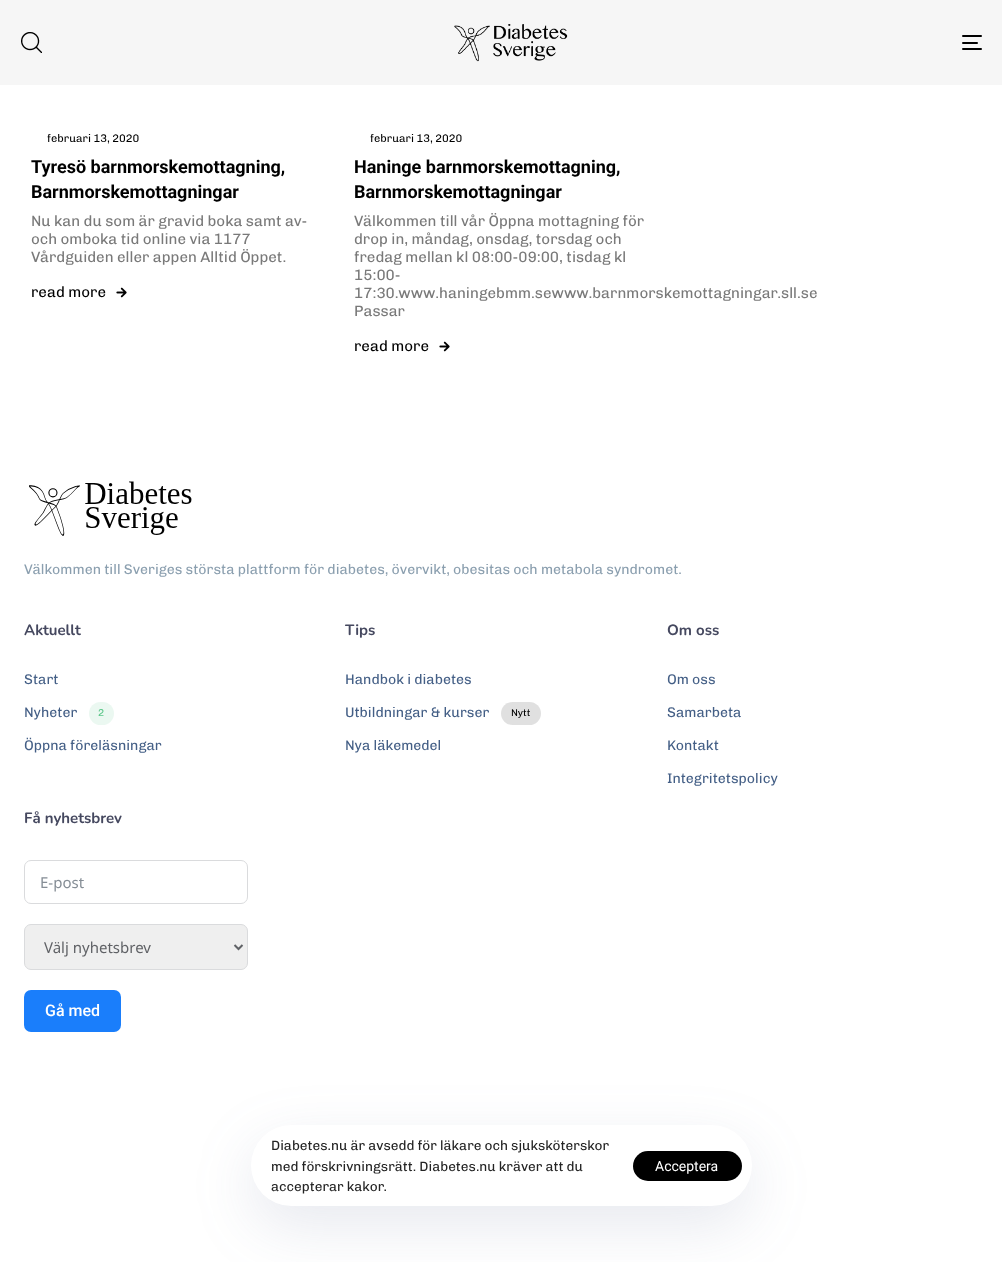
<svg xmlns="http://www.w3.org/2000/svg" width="1002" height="1262">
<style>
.a{font:11px Chivo;fill:#000}
.b{font:bold 18px Roboto;fill:#000}
.c{font:15px Chivo;fill:#797979}
.d{font:15px Chivo;fill:#000}
.e{font:14px Chivo;fill:#8b9faf}
.f{font:bold 15px Nunito;fill:#45485f}
.g{font:14px Chivo;fill:#445f86}
.h{font:10px Chivo;fill:#5cc78a}
.i{font:10px Chivo;fill:#000}
.j{font:15px Noto Sans;fill:#868e96}
.k{font:15px Noto Sans;fill:#606266}
.l{font:500 16px Roboto;fill:#fff}
.m{font:13.5px Chivo;fill:#242424}
.n{font:14px Roboto;fill:#fff}
</style>
<rect width="100%" height="100%" fill="#fff"/>
<path fill="#f6f6f6" d="M0 0h1002v85H0z"/>
<image href="1.png" x="21" y="32" width="21" height="21"/>
<image href="2.png" x="454" y="24" width="114" height="38"/>
<rect fill="#000" x="962" y="35" width="20" height="2" rx="1"/>
<rect fill="#000" x="962" y="42" width="16" height="2" rx="1"/>
<rect fill="#000" x="962" y="48" width="20" height="2" rx="1"/>
<image href="3.png" x="116" y="287" width="11" height="11"/>
<image href="3.png" x="439" y="341" width="11" height="11"/>
<image href="4.png" x="29" y="481" width="163" height="55"/>
<rect fill="#5cc78a1f" x="89" y="702" width="25" height="23" rx="11.5"/>
<rect fill="#0000001f" x="501" y="702" width="40" height="23" rx="11.5"/>
<rect fill="none" stroke="#dadbdd" x="24.5" y="860.5" width="223" height="43" rx="6.5"/>
<rect fill="#efefef" stroke="#dadbdd" x="24.5" y="924.5" width="223" height="45" rx="6.5"/>
<path fill="none" stroke="#606266" stroke-width="2" d="M234.5 945l4 4l4-4"/>
<rect fill="#1a7efb" x="24" y="990" width="97" height="42" rx="7"/>
<rect fill="#5c6b9526" filter="blur(30px)" x="251" y="1145" width="501" height="81" rx="40.5"/>
<rect fill="#fff" x="251" y="1125" width="501" height="81" rx="40.5"/>
<rect fill="#000" x="633" y="1151" width="109" height="30" rx="15"/>
<text class="a" x="47" y="142">februari 13, 2020</text>
<text class="b" x="31" y="173">Tyresö barnmorskemottagning,</text>
<text class="b" x="31" y="198">Barnmorskemottagningar</text>
<text class="c" x="31" y="226">Nu kan du som är gravid boka samt av-</text>
<text class="c" x="31" y="244">och omboka tid online via 1177</text>
<text class="c" x="31" y="262">Vårdguiden eller appen Alltid Öppet.</text>
<text class="d" x="31" y="297">read more</text>
<text class="a" x="370" y="142">februari 13, 2020</text>
<text class="b" x="354" y="173">Haninge barnmorskemottagning,</text>
<text class="b" x="354" y="198">Barnmorskemottagningar</text>
<text class="c" x="354" y="226">Välkommen till vår Öppna mottagning för</text>
<text class="c" x="354" y="244">drop in, måndag, onsdag, torsdag och</text>
<text class="c" x="354" y="262">fredag mellan kl 08:00-09:00, tisdag kl</text>
<text class="c" x="354" y="280">15:00-</text>
<text class="c" x="354" y="298">17:30.www.haningebmm.sewww.barnmorskemottagningar.sll.se</text>
<text class="c" x="354" y="316">Passar</text>
<text class="d" x="354" y="351">read more</text>
<text class="e" x="24" y="574">Välkommen till Sveriges största plattform för diabetes, övervikt, obesitas och metabola syndromet.</text>
<text class="f" x="24" y="635">Aktuellt</text>
<text class="g" x="24" y="684">Start</text>
<text class="g" x="24" y="717">Nyheter</text>
<text class="h" x="98" y="716">2</text>
<text class="g" x="24" y="750">Öppna föreläsningar</text>
<text class="f" x="345" y="635">Tips</text>
<text class="g" x="345" y="684">Handbok i diabetes</text>
<text class="g" x="345" y="717">Utbildningar &amp; kurser</text>
<text class="i" x="511" y="716">Nytt</text>
<text class="g" x="345" y="750">Nya läkemedel</text>
<text class="f" x="667" y="635">Om oss</text>
<text class="g" x="667" y="684">Om oss</text>
<text class="g" x="667" y="717">Samarbeta</text>
<text class="g" x="667" y="750">Kontakt</text>
<text class="g" x="667" y="783">Integritetspolicy</text>
<text class="f" x="24" y="823">Få nyhetsbrev</text>
<text class="j" x="40" y="888">E-post</text>
<text class="k" x="44" y="953">Välj nyhetsbrev</text>
<text class="l" x="45" y="1016">Gå med</text>
<text class="m" x="271" y="1150">Diabetes.nu är avsedd för läkare och sjuksköterskor</text>
<text class="m" x="271" y="1171">med förskrivningsrätt. Diabetes.nu kräver att du</text>
<text class="m" x="271" y="1191">accepterar kakor.</text>
<text class="n" x="655" y="1171">Acceptera</text>
</svg>
